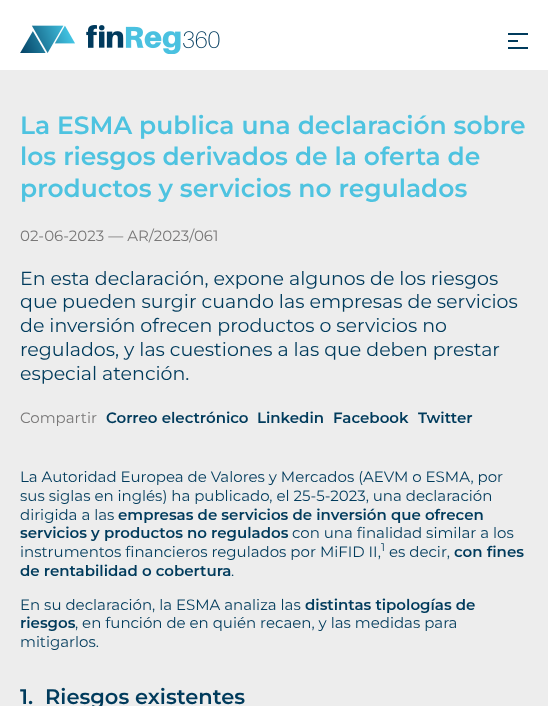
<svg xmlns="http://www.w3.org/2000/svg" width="548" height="706">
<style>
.a{font:600 25px Montserrat;fill:#4ec3e0}
.b{font:15px Montserrat;fill:#797878}
.c{font:19px Montserrat;fill:#003b5c}
.d{font:600 15px Montserrat;fill:#003b5c}
.e{font:15px Montserrat;fill:#003b5c}
.f{font:11px Montserrat;fill:#003b5c}
.g{font:600 21px Montserrat;fill:#003b5c}
</style>
<rect width="100%" height="100%" fill="#ededed"/>
<path fill="#fff" d="M0 0h548v70H0z"/>
<image href="1.png" x="20" y="25" width="200" height="29"/>
<path fill="#003b5c" d="M508 40h10v2H508z"/>
<path fill="#003b5c" d="M508 33h20v2H508z"/>
<path fill="#003b5c" d="M508 47h20v2H508z"/>
<text class="a" x="20" y="134">La ESMA publica una declaración sobre</text>
<text class="a" x="20" y="165">los riesgos derivados de la oferta de</text>
<text class="a" x="20" y="197">productos y servicios no regulados</text>
<text class="b" x="20" y="241">02-06-2023 — AR/2023/061</text>
<text class="c" x="20" y="285">En esta declaración, expone algunos de los riesgos</text>
<text class="c" x="20" y="308">que pueden surgir cuando las empresas de servicios</text>
<text class="c" x="20" y="332">de inversión ofrecen productos o servicios no</text>
<text class="c" x="20" y="356">regulados, y las cuestiones a las que deben prestar</text>
<text class="c" x="20" y="380">especial atención.</text>
<text class="b" x="20" y="423">Compartir</text>
<text class="d" x="106" y="423">Correo electrónico</text>
<text class="d" x="257" y="423">Linkedin</text>
<text class="d" x="333" y="423">Facebook</text>
<text class="d" x="418" y="423">Twitter</text>
<text class="e" x="20" y="482">La Autoridad Europea de Valores y Mercados (AEVM o ESMA, por</text>
<text class="e" x="20" y="501">sus siglas en inglés) ha publicado, el 25-5-2023, una declaración</text>
<text class="e" x="20" y="520">dirigida a las</text>
<text class="d" x="118" y="520">empresas de servicios de inversión que ofrecen</text>
<text class="d" x="20" y="538">servicios y productos no regulados</text>
<text class="e" x="292" y="538">con una finalidad similar a los</text>
<text class="e" x="20" y="557">instrumentos financieros regulados por MiFID II,</text>
<text class="f" x="381" y="551">1</text>
<text class="e" x="389" y="557">es decir,</text>
<text class="d" x="454" y="557">con fines</text>
<text class="d" x="20" y="576">de rentabilidad o cobertura</text>
<text class="e" x="231" y="576">.</text>
<text class="e" x="20" y="610">En su declaración, la ESMA analiza las</text>
<text class="d" x="305" y="610">distintas tipologías de</text>
<text class="d" x="20" y="628">riesgos</text>
<text class="e" x="75" y="628">, en función de en quién recaen, y las medidas para</text>
<text class="e" x="20" y="647">mitigarlos.</text>
<text class="g" x="20" y="704">1.</text>
<text class="g" x="45" y="704">Riesgos existentes</text>
</svg>
